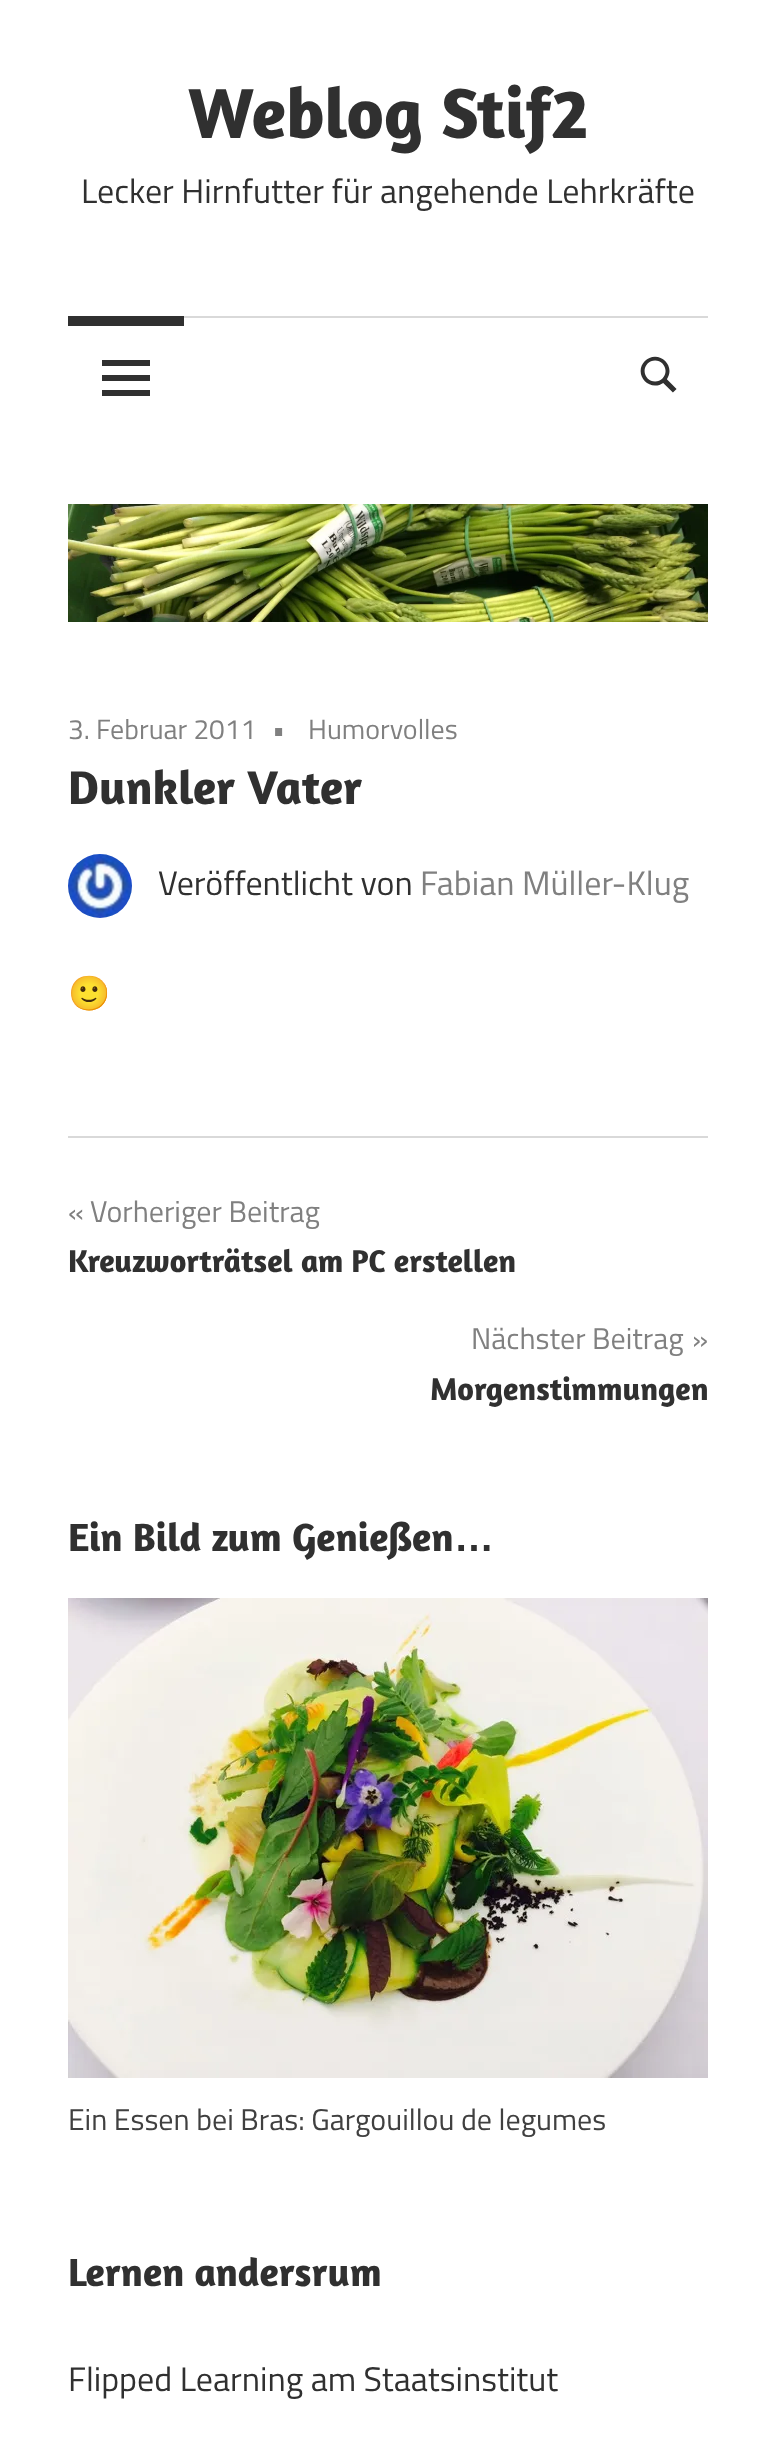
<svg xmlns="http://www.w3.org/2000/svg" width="776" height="2458">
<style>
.a{font:bold 72px Amaranth;fill:#303030}
.b{font:34px Titillium Web;fill:#303030}
.c{font:28px Titillium Web;fill:#808080}
.d{font:bold 48px Amaranth;fill:#303030}
.e{font:34px Titillium Web;fill:#808080}
.f{font:34px Noto Color Emoji;fill:#303030}
.g{font:30px Titillium Web;fill:#808080}
.h{font:bold 32px Amaranth;fill:#303030}
.i{font:bold 40px Amaranth;fill:#303030}
.j{font:bold 40px Liberation Sans;fill:#303030}
.k{font:30px Titillium Web;fill:#404040}
</style>
<rect width="100%" height="100%" fill="#fff"/>
<path fill="#d9d9d9" d="M184 316h524v2H184z"/>
<path fill="#303030" d="M68 316h116v10H68z"/>
<image href="1.png" x="102" y="360" width="48" height="36"/>
<image href="2.png" x="640" y="356" width="37" height="37"/>
<image href="3.png" x="68" y="504" width="640" height="118"/>
<image href="4.png" x="68" y="854" width="64" height="64"/>
<path fill="#d9d9d9" d="M68 1136h640v2H68z"/>
<image href="5.png" x="68" y="1598" width="640" height="480"/>
<text class="a" x="188" y="138">Weblog Stif2</text>
<text class="b" x="81" y="203">Lecker Hirnfutter für angehende Lehrkräfte</text>
<text class="c" x="68" y="739">3. Februar 2011</text>
<text class="c" x="272" y="739">•</text>
<text class="c" x="308" y="739">Humorvolles</text>
<text class="d" x="68" y="804">Dunkler Vater</text>
<text class="b" x="158" y="895">Veröffentlicht von</text>
<text class="e" x="420" y="895">Fabian Müller-Klug</text>
<text class="f" x="68" y="1005">🙂</text>
<text class="g" x="68" y="1222">«</text>
<text class="g" x="90" y="1222">Vorheriger Beitrag</text>
<text class="h" x="68" y="1272">Kreuzworträtsel am PC erstellen</text>
<text class="g" x="471" y="1349">Nächster Beitrag</text>
<text class="g" x="692" y="1349">»</text>
<text class="h" x="430" y="1400">Morgenstimmungen</text>
<text class="i" x="68" y="1551">Ein Bild zum Genießen</text>
<text class="j" x="454" y="1551">…</text>
<text class="k" x="68" y="2130">Ein Essen bei Bras: Gargouillou de legumes</text>
<text class="i" x="68" y="2286">Lernen andersrum</text>
<text class="b" x="68" y="2391">Flipped Learning am Staatsinstitut</text>
</svg>
